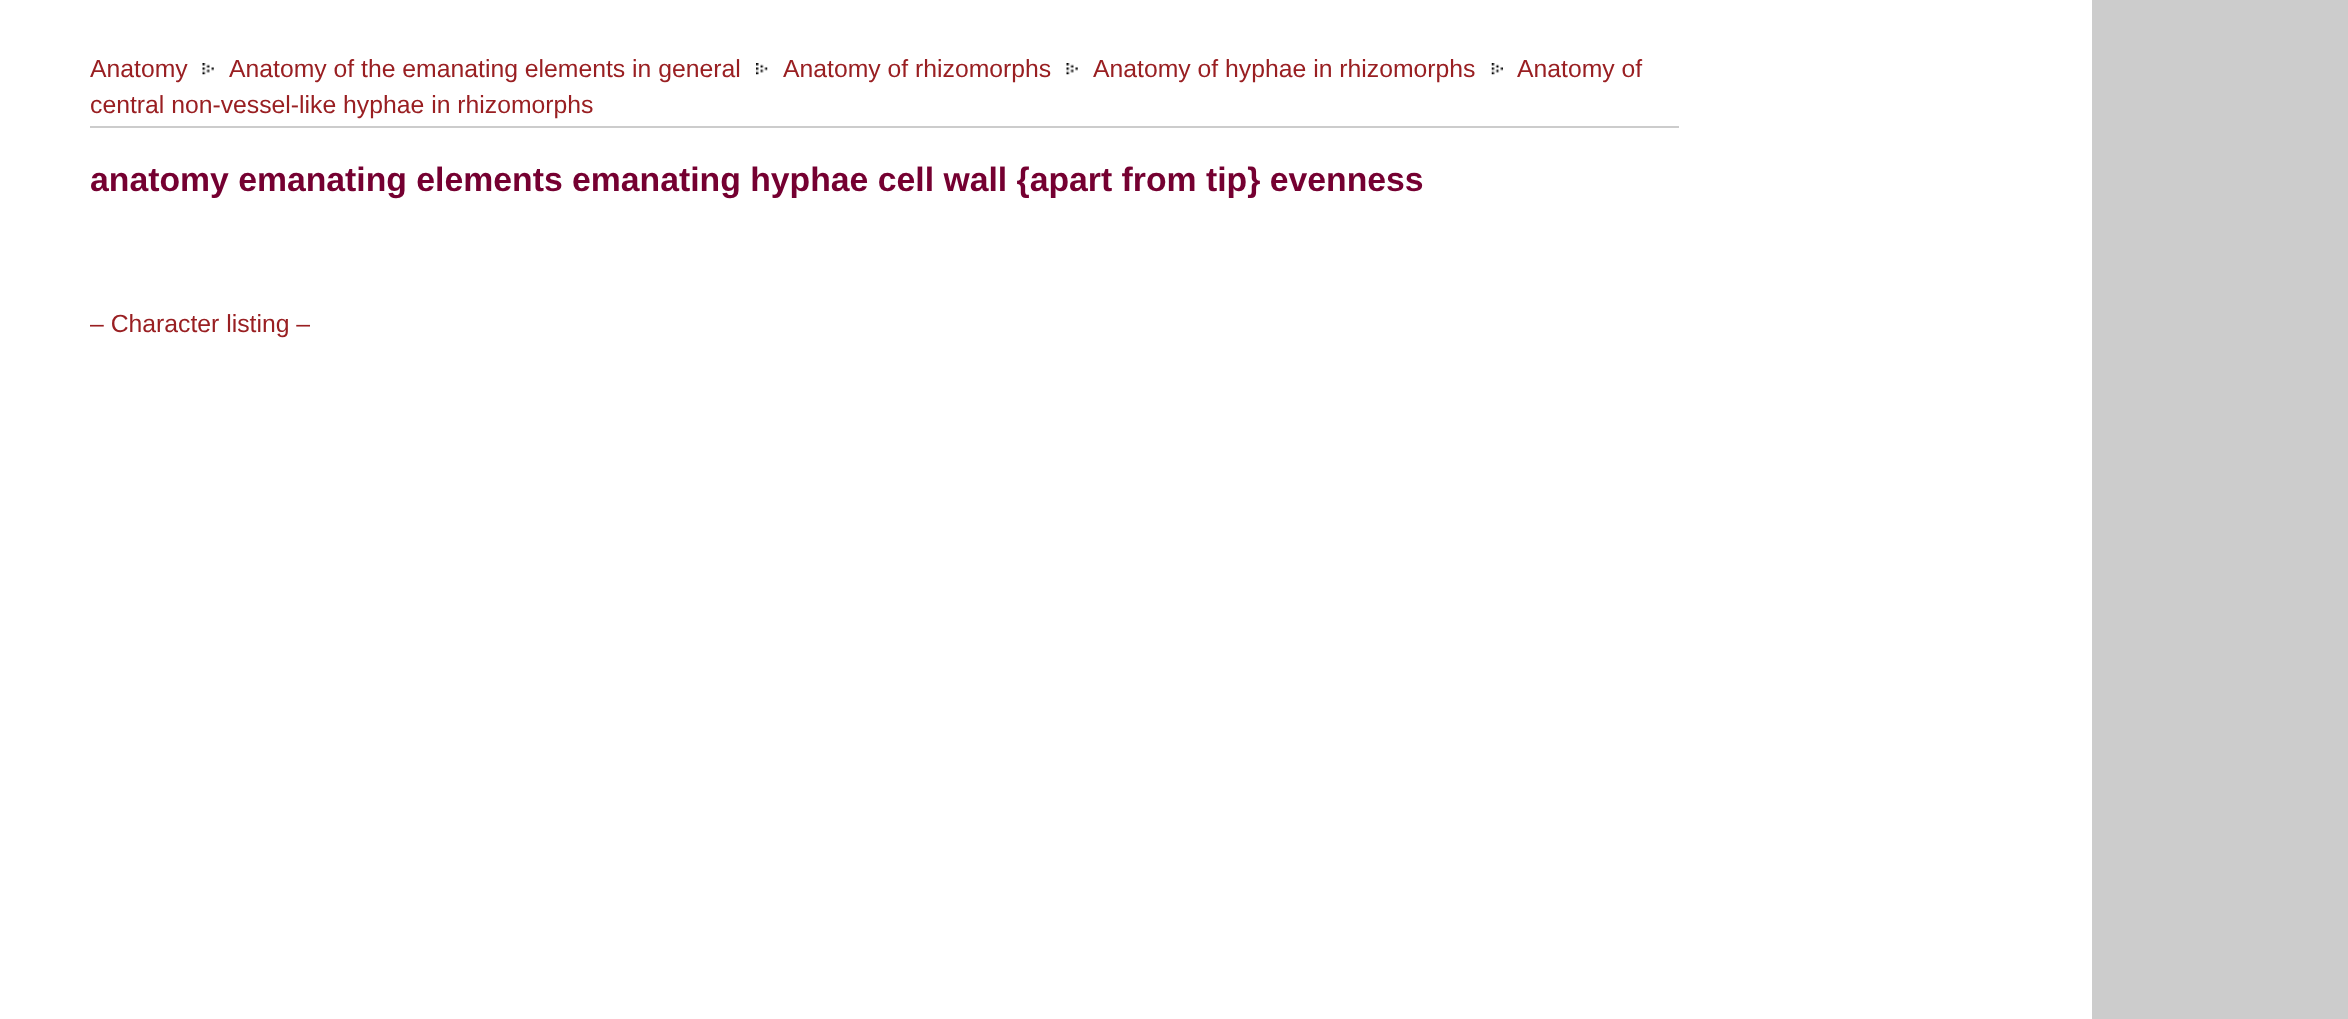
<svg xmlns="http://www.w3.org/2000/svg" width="2348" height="1019">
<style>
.a{font:24.75px Liberation Sans;fill:#991f22}
.b{font:bold 33.75px Liberation Sans;fill:#750031}
</style>
<rect width="100%" height="100%" fill="#fff"/>
<path fill="#ccc" d="M2092 0h256v1019H2092z"/>
<path fill="#ccc" d="M90 126h1589v2H90z"/>
<image href="1.png" x="202" y="63" width="12" height="12"/>
<image href="2.png" x="756" y="63" width="12" height="12"/>
<image href="3.png" x="1066" y="63" width="12" height="12"/>
<image href="4.png" x="1491" y="63" width="12" height="12"/>
<text class="a" x="90" y="77">Anatomy</text>
<text class="a" x="229" y="77">Anatomy of the emanating elements in general</text>
<text class="a" x="783" y="77">Anatomy of rhizomorphs</text>
<text class="a" x="1093" y="77">Anatomy of hyphae in rhizomorphs</text>
<text class="a" x="1517" y="77">Anatomy of</text>
<text class="a" x="90" y="113">central non-vessel-like hyphae in rhizomorphs</text>
<text class="b" x="90" y="191">anatomy emanating elements emanating hyphae cell wall {apart from tip} evenness</text>
<text class="a" x="90" y="332">– Character listing –</text>
</svg>
